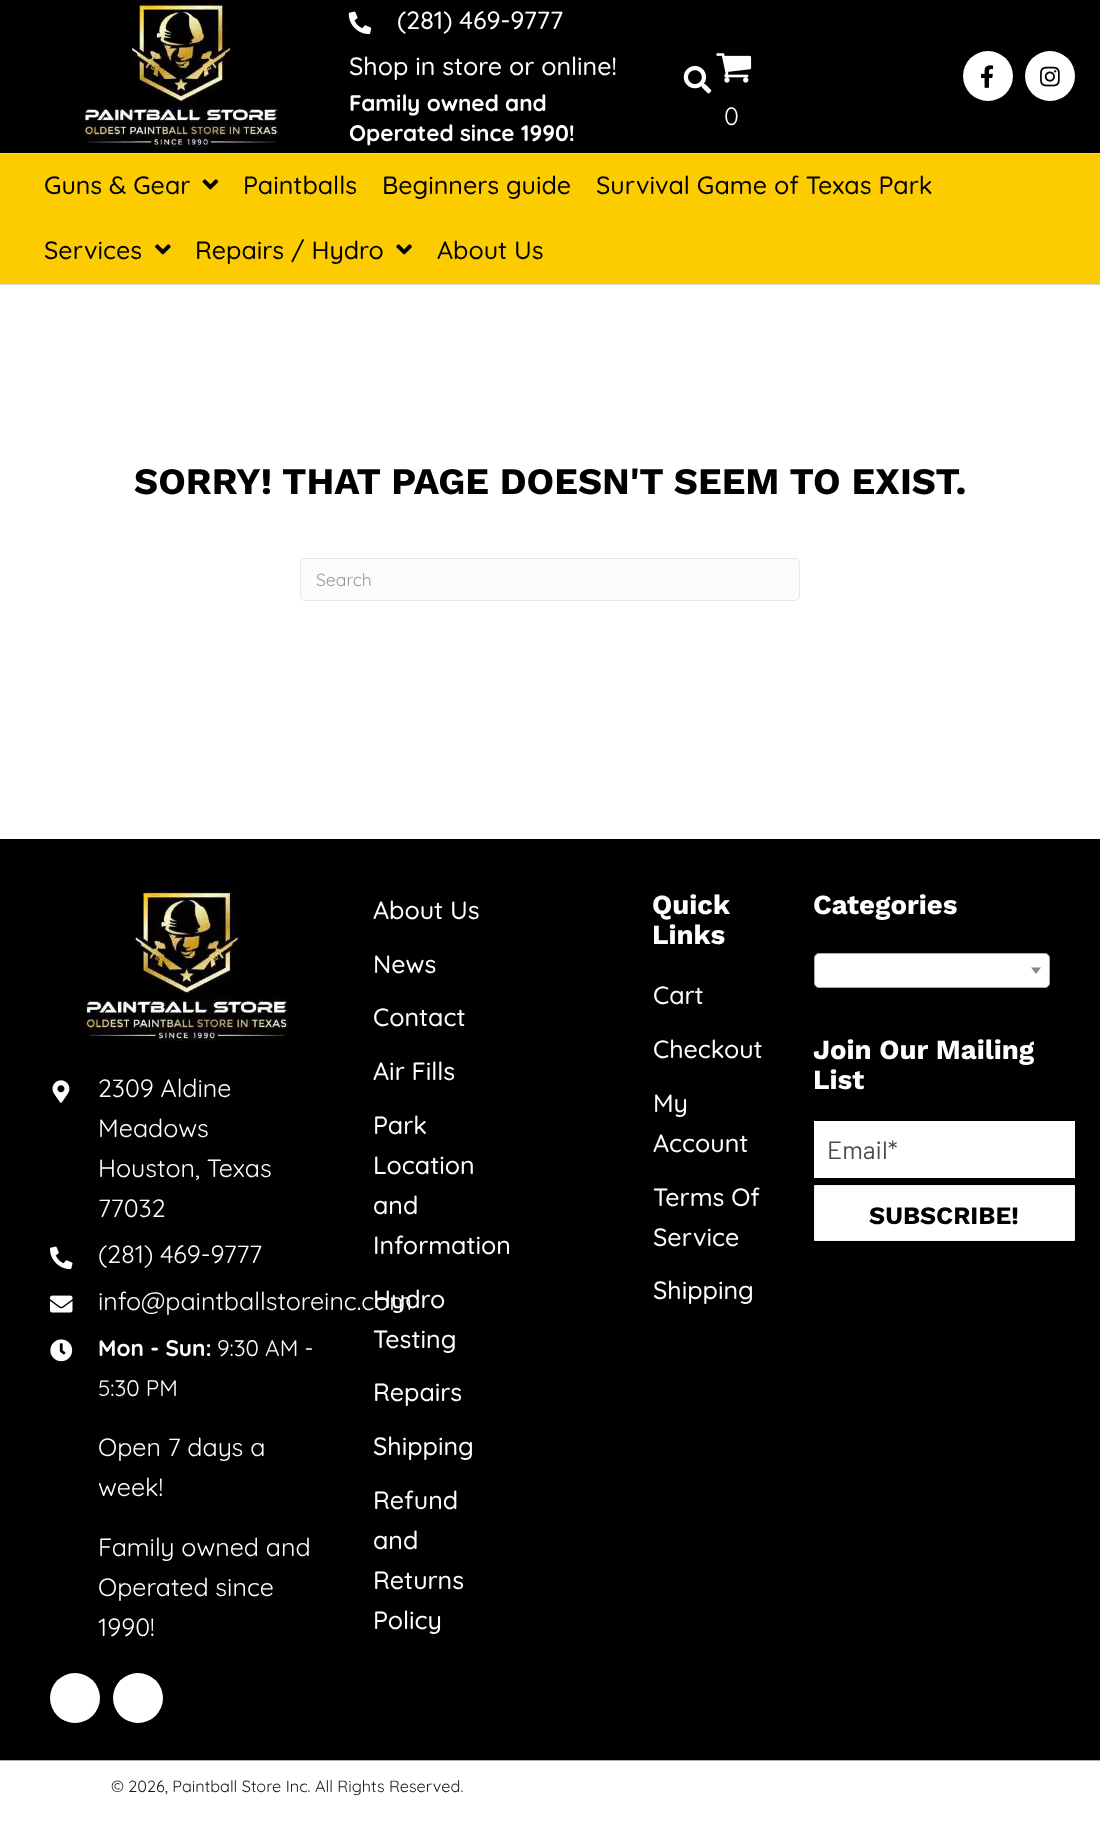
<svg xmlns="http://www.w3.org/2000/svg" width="1100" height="1834">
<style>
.a{font:500 25px Quicksand;fill:#fff}
.b{font:bold 22.5px Quicksand;fill:#fff}
.c{font:25px Quicksand;fill:#fff}
.d{font:500 25px Quicksand;fill:#000}
.e{font:bold 37.5px Work Sans;fill:#000}
.f{font:17.5px Quicksand;fill:#979797}
.g{font:22.5px Quicksand;fill:#fff}
.h{font:bold 27.5px Work Sans;fill:#fff}
.i{font:25px Barlow;fill:#4c4c4c}
.j{font:bold 25px Work Sans;fill:#000}
.k{font:16.25px Quicksand;fill:#161616}
</style>
<rect width="100%" height="100%" fill="#fff"/>
<path fill="#000" d="M0 0h1100v153H0z"/>
<path fill="#d6d6d6" d="M0 153h1100v1H0z"/>
<image href="1.png" x="83" y="2" width="196" height="148"/>
<image href="2.png" x="348" y="11" width="24" height="24"/>
<circle fill="#fff" cx="988" cy="76" r="25"/>
<image href="3.png" x="981" y="65" width="13" height="23"/>
<circle fill="#fff" cx="1050" cy="76" r="25"/>
<image href="4.png" x="1040" y="66" width="20" height="21"/>
<image href="5.png" x="683" y="65" width="29" height="29"/>
<image href="6.png" x="716" y="53" width="36" height="30"/>
<path fill="#fccc00" d="M0 154h1100v130H0z"/>
<path fill="#d6d6d6" d="M0 284h1100v1H0z"/>
<image href="7.png" x="202" y="179" width="17" height="11"/>
<image href="8.png" x="155" y="244" width="16" height="11"/>
<image href="9.png" x="396" y="244" width="16" height="11"/>
<rect fill="#fcfcfc" stroke="#e6e6e6" x="300.5" y="558.5" width="499" height="42" rx="4.5"/>
<path fill="#000" d="M0 839h1100v921H0z"/>
<image href="10.png" x="84" y="890" width="205" height="153"/>
<image href="11.png" x="52" y="1080" width="18" height="23"/>
<image href="12.png" x="50" y="1246" width="23" height="24"/>
<image href="13.png" x="50" y="1295" width="23" height="18"/>
<image href="14.png" x="50" y="1339" width="23" height="23"/>
<circle fill="#fff" cx="75" cy="1698" r="25"/>
<circle fill="#fff" cx="138" cy="1698" r="25"/>
<rect fill="#fff" stroke="#aaa" x="814.5" y="953.5" width="235" height="34" rx="4.5"/>
<path fill="#888" d="M1031 967.5h10l-5 6.5z"/>
<path fill="#fff" d="M814 1121h261v57H814z"/>
<path fill="#fff" stroke="#f3f3f3" d="M814.5 1185.5h260v55H814.5z"/>
<path fill="#afafaf" d="M0 1760h1100v1H0z"/>
<text class="a" x="397" y="29">(281) 469-9777</text>
<text class="a" x="349" y="75">Shop in store or online!</text>
<text class="b" x="349" y="111">Family owned and</text>
<text class="b" x="349" y="141">Operated since 1990!</text>
<text class="c" x="724" y="125">0</text>
<text class="d" x="44" y="194">Guns &amp; Gear</text>
<text class="d" x="243" y="194">Paintballs</text>
<text class="d" x="382" y="194">Beginners guide</text>
<text class="d" x="596" y="194">Survival Game of Texas Park</text>
<text class="d" x="44" y="259">Services</text>
<text class="d" x="195" y="259">Repairs / Hydro</text>
<text class="d" x="437" y="259">About Us</text>
<text class="e" x="134" y="494">SORRY! THAT PAGE DOESN'T SEEM TO EXIST.</text>
<text class="f" x="316" y="586">Search</text>
<text class="c" x="98" y="1097">2309 Aldine</text>
<text class="c" x="98" y="1137">Meadows</text>
<text class="c" x="98" y="1177">Houston, Texas</text>
<text class="c" x="98" y="1217">77032</text>
<text class="c" x="98" y="1263">(281) 469-9777</text>
<text class="b" x="98" y="1356">Mon - Sun:</text>
<text class="g" x="217" y="1356">9:30 AM -</text>
<text class="g" x="98" y="1396">5:30 PM</text>
<text class="c" x="98" y="1456">Open 7 days a</text>
<text class="c" x="98" y="1496">week!</text>
<text class="c" x="98" y="1556">Family owned and</text>
<text class="c" x="98" y="1596">Operated since</text>
<text class="c" x="98" y="1636">1990!</text>
<text class="a" x="373" y="919">About Us</text>
<text class="a" x="373" y="973">News</text>
<text class="a" x="373" y="1026">Contact</text>
<text class="a" x="373" y="1080">Air Fills</text>
<text class="a" x="373" y="1134">Park</text>
<text class="a" x="373" y="1174">Location</text>
<text class="a" x="373" y="1214">and</text>
<text class="a" x="373" y="1254">Information</text>
<text class="a" x="373" y="1308">Hydro</text>
<text class="c" x="98" y="1310">info@paintballstoreinc.com</text>
<text class="a" x="373" y="1348">Testing</text>
<text class="a" x="373" y="1401">Repairs</text>
<text class="a" x="373" y="1455">Shipping</text>
<text class="a" x="373" y="1509">Refund</text>
<text class="a" x="373" y="1549">and</text>
<text class="a" x="373" y="1589">Returns</text>
<text class="a" x="373" y="1629">Policy</text>
<text class="h" x="652" y="914">Quick</text>
<text class="h" x="652" y="944">Links</text>
<text class="a" x="653" y="1004">Cart</text>
<text class="a" x="653" y="1058">Checkout</text>
<text class="a" x="653" y="1112">My</text>
<text class="a" x="653" y="1152">Account</text>
<text class="a" x="653" y="1206">Terms Of</text>
<text class="a" x="653" y="1246">Service</text>
<text class="a" x="653" y="1299">Shipping</text>
<text class="h" x="813" y="914">Categories</text>
<text class="h" x="813" y="1059">Join Our Mailing</text>
<text class="h" x="813" y="1089">List</text>
<text class="i" x="827" y="1159">Email*</text>
<text class="j" x="869" y="1224">SUBSCRIBE!</text>
<text class="k" x="111" y="1792">© 2026, Paintball Store Inc. All Rights Reserved.</text>
</svg>
